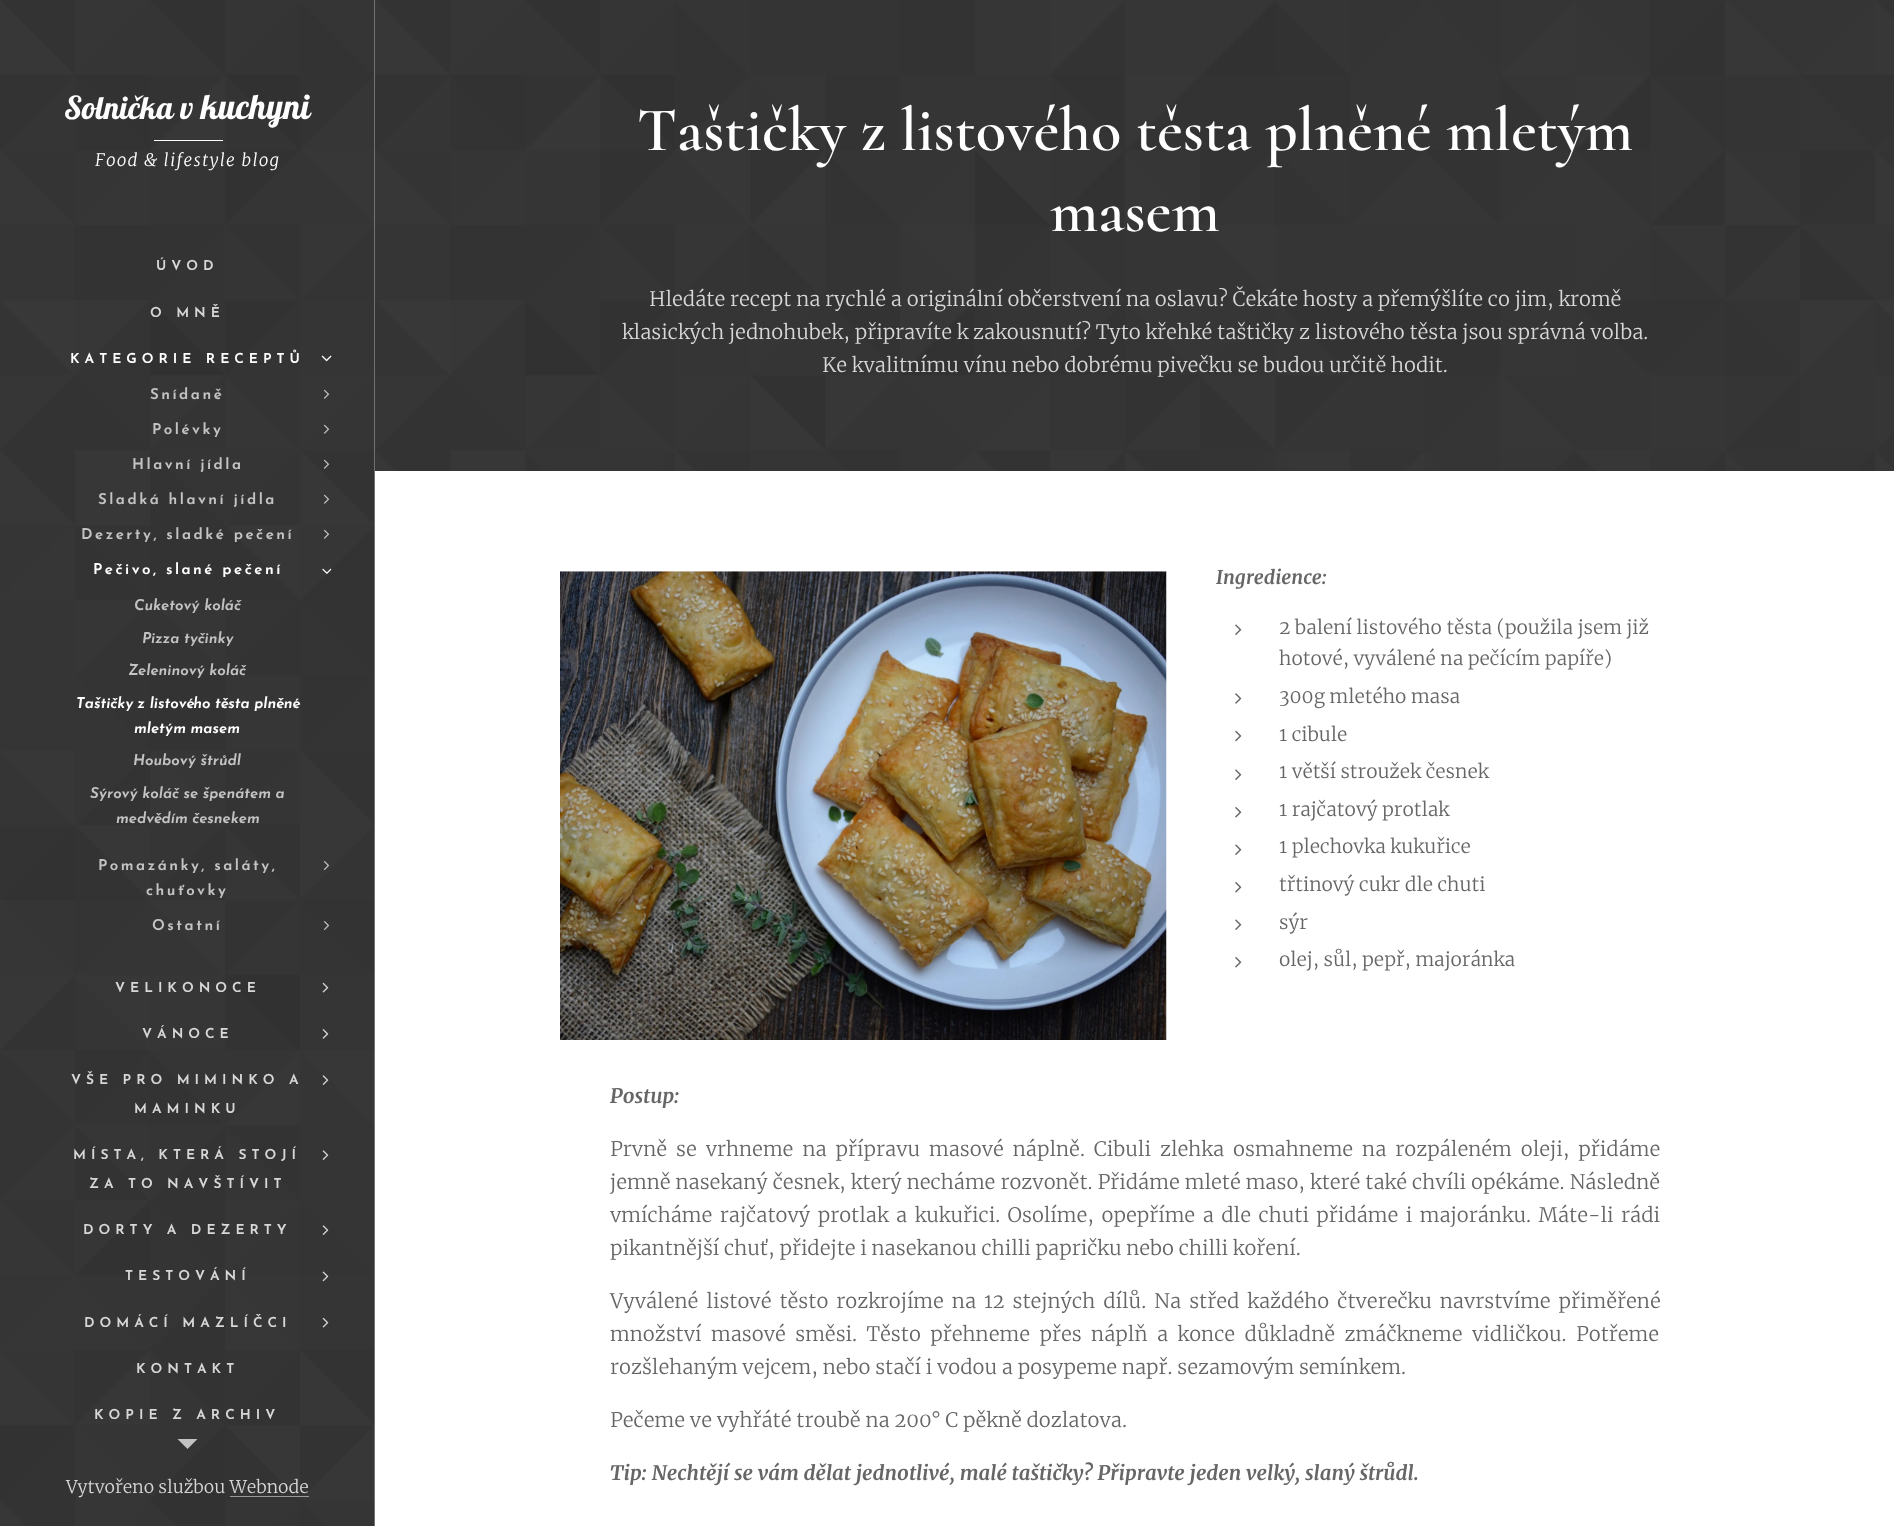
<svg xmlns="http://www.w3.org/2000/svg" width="1894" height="1526">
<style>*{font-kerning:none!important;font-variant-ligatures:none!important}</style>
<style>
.a{font:31.5px Lobster;fill:#fff}
.b{font:34.5px Lobster;fill:#fff}
.c{font:italic 300 17.1px Merriweather;letter-spacing:1.25px;fill:#fff}
.d{font:600 13.75px Josefin Sans;letter-spacing:5px;fill:#d7d7d7}
.e{font:600 13.75px Josefin Sans;letter-spacing:5px;fill:#fff}
.f{font:600 15px Josefin Sans;letter-spacing:2.5px;fill:#c3c3c3}
.g{font:600 15px Josefin Sans;letter-spacing:2.5px;fill:#fff}
.h{font:italic 600 15px Josefin Sans;fill:#c3c3c3}
.i{font:italic 600 15px Josefin Sans;fill:#fff}
.j{font:600 62.5px Cormorant;fill:#fff}
.k{font:300 20px Merriweather;fill:#d7d7d7}
.l{font:italic bold 19px Merriweather;fill:#666}
.m{font:300 19px Merriweather;fill:#666}
.n{font:italic bold 20px Merriweather;fill:#666}
.o{font:300 20px Merriweather;fill:#666}
.p{font:300 17.5px Merriweather;fill:#d7d7d7}
</style>
<defs>
<clipPath id="clip1"><path d="M129 659h117v25H129z"/></clipPath>
<clipPath id="clip2"><path d="M134 749h107v25H134z"/></clipPath>
</defs>
<rect width="100%" height="100%" fill="#fff"/>
<image href="1.png" x="0" y="0" width="375" height="1526"/>
<path fill="#fff" d="M154 140h69v1H154z"/>
<image href="2.png" x="321" y="355" width="11" height="7"/>
<image href="3.png" x="323" y="389" width="7" height="10"/>
<image href="4.png" x="323" y="424" width="7" height="10"/>
<image href="5.png" x="323" y="459" width="7" height="10"/>
<image href="6.png" x="323" y="494" width="7" height="10"/>
<image href="3.png" x="323" y="529" width="7" height="10"/>
<image href="7.png" x="322" y="568" width="10" height="6"/>
<image href="8.png" x="323" y="861" width="7" height="9"/>
<image href="9.png" x="323" y="921" width="7" height="9"/>
<image href="10.png" x="322" y="982" width="7" height="11"/>
<image href="11.png" x="322" y="1029" width="7" height="10"/>
<image href="12.png" x="322" y="1075" width="7" height="10"/>
<image href="13.png" x="322" y="1150" width="7" height="10"/>
<image href="14.png" x="322" y="1225" width="7" height="10"/>
<image href="15.png" x="322" y="1271" width="7" height="11"/>
<image href="10.png" x="322" y="1317" width="7" height="11"/>
<path fill="#c2c2c2" d="M177.5 1439h20l-10 10z"/>
<path fill="#ffffff4d" d="M374 0h1v1526H374z"/>
<image href="16.png" x="375" y="0" width="1519" height="471"/>
<image href="17.png" x="560" y="571" width="607" height="469"/>
<image href="18.png" x="1235" y="624" width="7" height="11"/>
<image href="19.png" x="1235" y="693" width="7" height="11"/>
<image href="20.png" x="1235" y="730" width="7" height="12"/>
<image href="18.png" x="1235" y="769" width="7" height="11"/>
<image href="21.png" x="1235" y="807" width="7" height="11"/>
<image href="18.png" x="1235" y="844" width="7" height="11"/>
<image href="21.png" x="1235" y="882" width="7" height="11"/>
<image href="18.png" x="1235" y="919" width="7" height="11"/>
<image href="21.png" x="1235" y="957" width="7" height="11"/>
<text class="a" x="64" y="119">Solnička v</text>
<text class="b" x="201" y="119">kuchyni</text>
<text class="c" x="95" y="166">Food &amp; lifestyle blog</text>
<text class="d" x="156" y="270">ÚVOD</text>
<text class="d" x="150" y="317">O MNĚ</text>
<text class="e" x="70" y="363">KATEGORIE RECEPTŮ</text>
<text class="f" x="150" y="399">Snídaně</text>
<text class="f" x="152" y="434">Polévky</text>
<text class="f" x="132" y="469">Hlavní jídla</text>
<text class="f" x="98" y="504">Sladká hlavní jídla</text>
<text class="f" x="81" y="539">Dezerty, sladké pečení</text>
<text class="g" x="93" y="574">Pečivo, slané pečení</text>
<text class="h" x="134" y="610">Cuketový koláč</text>
<text class="h" x="142" y="643">Pizza tyčinky</text>
<g clip-path="url(#clip1)">
<text class="h" x="128" y="675">Zeleninový koláč</text>
</g>
<text class="i" x="76" y="708">Taštičky z listového těsta plněné</text>
<text class="i" x="134" y="733">mletým masem</text>
<g clip-path="url(#clip2)">
<text class="h" x="133" y="765">Houbový štrůdl</text>
</g>
<text class="h" x="90" y="798">Sýrový koláč se špenátem a</text>
<text class="h" x="116" y="823">medvědím česnekem</text>
<text class="f" x="98" y="870">Pomazánky, saláty,</text>
<text class="f" x="146" y="895">chuťovky</text>
<text class="f" x="152" y="930">Ostatní</text>
<text class="d" x="115" y="992">VELIKONOCE</text>
<text class="d" x="142" y="1038">VÁNOCE</text>
<text class="d" x="71" y="1084">VŠE PRO MIMINKO A</text>
<text class="d" x="134" y="1113">MAMINKU</text>
<text class="d" x="73" y="1159">MÍSTA, KTERÁ STOJÍ</text>
<text class="d" x="89" y="1188">ZA TO NAVŠTÍVIT</text>
<text class="d" x="83" y="1234">DORTY A DEZERTY</text>
<text class="d" x="125" y="1280">TESTOVÁNÍ</text>
<text class="d" x="84" y="1327">DOMÁCÍ MAZLÍČCI</text>
<text class="d" x="136" y="1373">KONTAKT</text>
<text class="d" x="94" y="1419">KOPIE Z ARCHIV</text>
<text class="j" x="637" y="150">Taštičky z listového těsta plněné mletým</text>
<text class="j" x="1050" y="231">masem</text>
<text class="k" x="649" y="306">Hledáte recept na rychlé a originální občerstvení na oslavu? Čekáte hosty a přemýšlíte co jim, kromě</text>
<text class="k" x="622" y="339">klasických jednohubek, připravíte k zakousnutí? Tyto křehké taštičky z listového těsta jsou správná volba.</text>
<text class="k" x="822" y="372">Ke kvalitnímu vínu nebo dobrému pivečku se budou určitě hodit.</text>
<text class="l" x="1216" y="584">Ingredience:</text>
<text class="m" x="1279" y="634">2 balení listového těsta (použila jsem již</text>
<text class="m" x="1279" y="665">hotové, vyválené na pečícím papíře)</text>
<text class="m" x="1279" y="703">300g mletého masa</text>
<text class="m" x="1279" y="741">1 cibule</text>
<text class="m" x="1279" y="778">1 větší stroužek česnek</text>
<text class="m" x="1279" y="816">1 rajčatový protlak</text>
<text class="m" x="1279" y="853">1 plechovka kukuřice</text>
<text class="m" x="1279" y="891">třtinový cukr dle chuti</text>
<text class="m" x="1279" y="929">sýr</text>
<text class="m" x="1279" y="966">olej, sůl, pepř, majoránka</text>
<text class="n" x="610" y="1103">Postup:</text>
<text class="o" x="610" y="1156" word-spacing="4.25">Prvně se vrhneme na přípravu masové náplně. Cibuli zlehka osmahneme na rozpáleném oleji, přidáme</text>
<text class="o" x="610" y="1189" word-spacing="0.25">jemně nasekaný česnek, který necháme rozvonět. Přidáme mleté maso, které také chvíli opékáme. Následně</text>
<text class="o" x="610" y="1222" word-spacing="2.75">vmícháme rajčatový protlak a kukuřici. Osolíme, opepříme a dle chuti přidáme i majoránku. Máte-li rádi</text>
<text class="o" x="610" y="1255">pikantnější chuť, přidejte i nasekanou chilli papričku nebo chilli koření.</text>
<text class="o" x="610" y="1308" word-spacing="3.25">Vyválené listové těsto rozkrojíme na 12 stejných dílů. Na střed každého čtverečku navrstvíme přiměřené</text>
<text class="o" x="610" y="1341" word-spacing="4.75">množství masové směsi. Těsto přehneme přes náplň a konce důkladně zmáčkneme vidličkou. Potřeme</text>
<text class="o" x="610" y="1374">rozšlehaným vejcem, nebo stačí i vodou a posypeme např. sezamovým semínkem.</text>
<text class="o" x="610" y="1427">Pečeme ve vyhřáté troubě na 200° C pěkně dozlatova.</text>
<text class="n" x="610" y="1480">Tip: Nechtějí se vám dělat jednotlivé, malé taštičky? Připravte jeden velký, slaný štrůdl.</text>
<text class="p" x="66" y="1493">Vytvořeno službou Webnode</text>
<path fill="#ffffff80" d="M230 1496h79v1H230z"/>
</svg>
